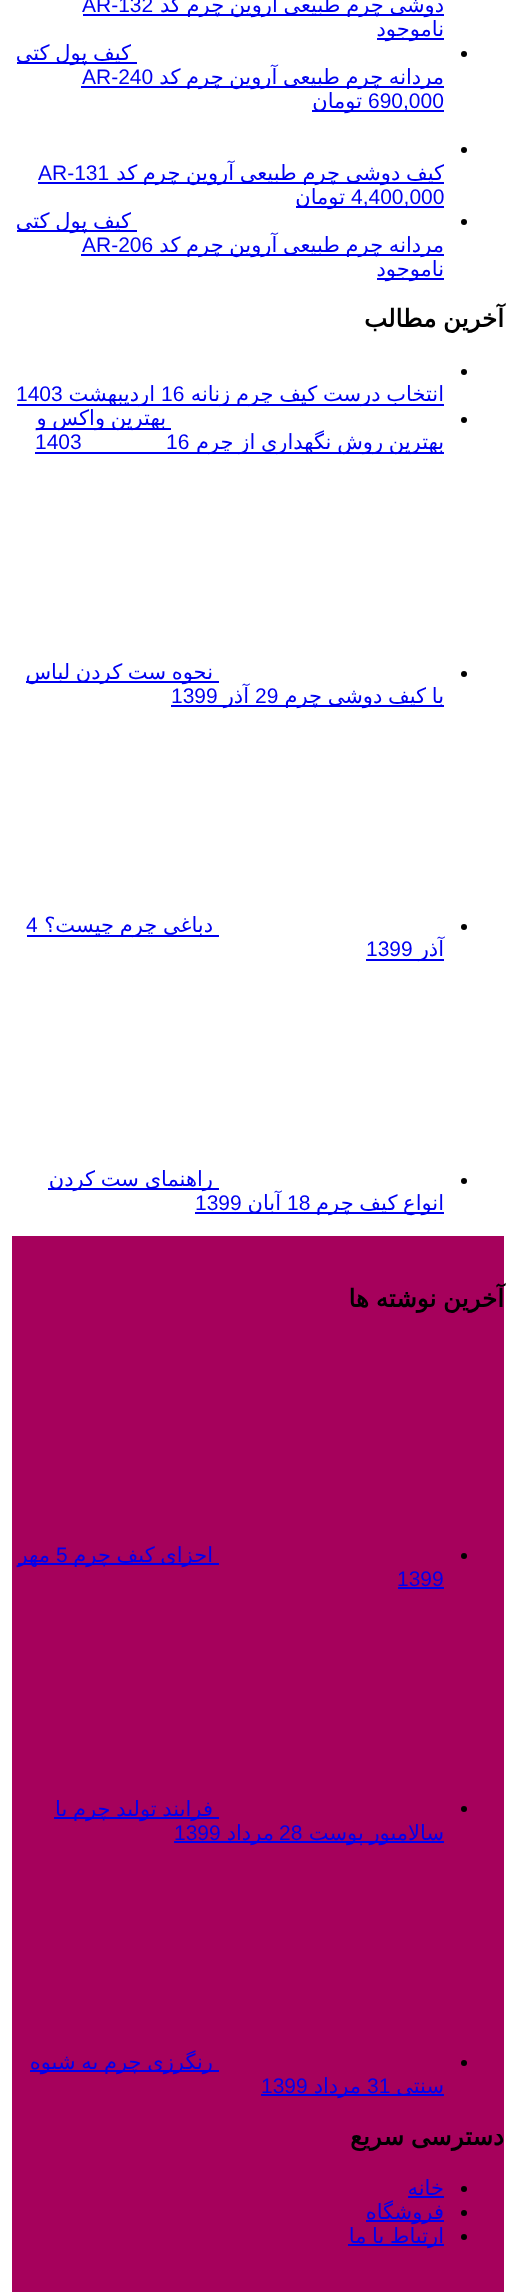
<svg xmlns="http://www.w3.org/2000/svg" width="515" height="2292">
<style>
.a{font:21px DejaVu Sans;direction:rtl;fill:#00e}
.b{font:21px Liberation Sans;fill:#00e}
.c{font:bold 24.5px DejaVu Sans;direction:rtl;fill:#000}
</style>
<rect width="100%" height="100%" fill="#fff"/>
<path fill="#00e" d="M83 14h361v2H83z"/>
<path fill="#00e" d="M377 38h67v2H377z"/>
<circle fill="#000" cx="464" cy="54" r="3"/>
<path fill="#00e" d="M17 62h120v2H17z"/>
<path fill="#00e" d="M81 86h363v2H81z"/>
<path fill="#00e" d="M312 110h132v2H312z"/>
<circle fill="#000" cx="464" cy="150" r="3"/>
<path fill="#00e" d="M38 182h406v2H38z"/>
<path fill="#00e" d="M296 206h148v2H296z"/>
<circle fill="#000" cx="464" cy="222" r="3"/>
<path fill="#00e" d="M17 230h120v2H17z"/>
<path fill="#00e" d="M81 254h363v2H81z"/>
<path fill="#00e" d="M377 278h67v2H377z"/>
<circle fill="#000" cx="464" cy="372" r="3"/>
<path fill="#00e" d="M185 404h259v2H185z"/>
<path fill="#00e" d="M17 404h168v2H17z"/>
<circle fill="#000" cx="464" cy="420" r="3"/>
<path fill="#00e" d="M36 428h135v2H36z"/>
<path fill="#00e" d="M189 452h255v2H189z"/>
<path fill="#00e" d="M35 452h154v2H35z"/>
<circle fill="#000" cx="464" cy="674" r="3"/>
<path fill="#00e" d="M26 681h193v2H26z"/>
<path fill="#00e" d="M278 705h166v2H278z"/>
<path fill="#00e" d="M171 705h107v2H171z"/>
<circle fill="#000" cx="464" cy="927" r="3"/>
<path fill="#00e" d="M27 935h192v2H27z"/>
<path fill="#00e" d="M366 959h78v2H366z"/>
<circle fill="#000" cx="464" cy="1181" r="3"/>
<path fill="#00e" d="M48 1188h171v2H48z"/>
<path fill="#00e" d="M311 1212h133v2H311z"/>
<path fill="#00e" d="M195 1212h116v2H195z"/>
<path fill="#a6015c" d="M12 1236h492v1056H12z"/>
<circle fill="#000" cx="464" cy="1556" r="3"/>
<path fill="#00e" d="M68 1563h151v2H68z"/>
<path fill="#00e" d="M18 1563h50v2H18z"/>
<path fill="#00e" d="M398 1587h46v2H398z"/>
<circle fill="#000" cx="464" cy="1809" r="3"/>
<path fill="#00e" d="M54 1817h165v2H54z"/>
<path fill="#00e" d="M303 1841h141v2H303z"/>
<path fill="#00e" d="M174 1841h129v2H174z"/>
<circle fill="#000" cx="464" cy="2063" r="3"/>
<path fill="#00e" d="M30 2070h189v2H30z"/>
<path fill="#00e" d="M390 2094h54v2H390z"/>
<path fill="#00e" d="M261 2094h129v2H261z"/>
<circle fill="#000" cx="464" cy="2189" r="3"/>
<path fill="#00e" d="M408 2196h36v2H408z"/>
<circle fill="#000" cx="464" cy="2213" r="3"/>
<path fill="#00e" d="M366 2220h78v2H366z"/>
<circle fill="#000" cx="464" cy="2237" r="3"/>
<path fill="#00e" d="M348 2244h96v2H348z"/>
<text class="a" x="444" y="12" word-spacing="-1">دوشی چرم طبیعی آروین چرم کد</text>
<text class="b" x="82" y="12">AR-132</text>
<text class="a" x="444" y="36">ناموجود</text>
<text class="a" x="131" y="60" word-spacing="-1">کیف پول کتی</text>
<text class="a" x="444" y="84" word-spacing="-1">مردانه چرم طبیعی آروین چرم کد</text>
<text class="b" x="82" y="84">AR-240</text>
<text class="b" x="368" y="108">690,000</text>
<text class="a" x="362" y="108">تومان</text>
<text class="a" x="444" y="180" word-spacing="-1">کیف دوشی چرم طبیعی آروین چرم کد</text>
<text class="b" x="38" y="180">AR-131</text>
<text class="b" x="351" y="204">4,400,000</text>
<text class="a" x="345" y="204">تومان</text>
<text class="a" x="131" y="228" word-spacing="-1">کیف پول کتی</text>
<text class="a" x="444" y="252" word-spacing="-1">مردانه چرم طبیعی آروین چرم کد</text>
<text class="b" x="82" y="252">AR-206</text>
<text class="a" x="444" y="276">ناموجود</text>
<text class="c" x="504" y="327" word-spacing="-1">آخرین مطالب</text>
<text class="a" x="444" y="401" word-spacing="-1">انتخاب درست کیف چرم زنانه</text>
<text class="b" x="161" y="401">16</text>
<text class="a" x="155" y="401">اردیبهشت</text>
<text class="b" x="16" y="401">1403</text>
<text class="a" x="166" y="425" word-spacing="-1">بهترین واکس و</text>
<text class="a" x="444" y="449" word-spacing="-1">بهترین روش نگهداری از چرم</text>
<text class="b" x="166" y="449">16</text>
<text class="b" x="35" y="449">1403</text>
<text class="a" x="213" y="679" word-spacing="-1">نحوه ست کردن لباس</text>
<text class="a" x="444" y="703" word-spacing="-1">با کیف دوشی چرم</text>
<text class="b" x="255" y="703">29</text>
<text class="a" x="249" y="703">آذر</text>
<text class="b" x="171" y="703">1399</text>
<text class="a" x="213" y="932" word-spacing="-1">دباغی چرم چیست؟</text>
<text class="b" x="26" y="932">4</text>
<text class="a" x="444" y="956">آذر</text>
<text class="b" x="366" y="956">1399</text>
<text class="a" x="213" y="1186" word-spacing="-1">راهنمای ست کردن</text>
<text class="a" x="444" y="1210" word-spacing="-1">انواع کیف چرم</text>
<text class="b" x="287" y="1210">18</text>
<text class="a" x="281" y="1210">آبان</text>
<text class="b" x="195" y="1210">1399</text>
<text class="c" x="504" y="1307" word-spacing="-1">آخرین نوشته ها</text>
<text class="a" x="213" y="1562" word-spacing="-1">اجزای کیف چرم</text>
<text class="b" x="56" y="1562">5</text>
<text class="a" x="50" y="1562">مهر</text>
<text class="b" x="397" y="1586">1399</text>
<text class="a" x="213" y="1816" word-spacing="-1">فرایند تولید چرم یا</text>
<text class="a" x="444" y="1840" word-spacing="-1">سالامبور پوست</text>
<text class="b" x="279" y="1840">28</text>
<text class="a" x="274" y="1840">مرداد</text>
<text class="b" x="174" y="1840">1399</text>
<text class="a" x="213" y="2069" word-spacing="-1">رنگرزی چرم به شیوه</text>
<text class="a" x="444" y="2093">سنتی</text>
<text class="b" x="367" y="2093">31</text>
<text class="a" x="361" y="2093">مرداد</text>
<text class="b" x="261" y="2093">1399</text>
<text class="c" x="504" y="2145" word-spacing="-1">دسترسی سریع</text>
<text class="a" x="444" y="2195">خانه</text>
<text class="a" x="444" y="2219">فروشگاه</text>
<text class="a" x="444" y="2243" word-spacing="-1">ارتباط با ما</text>
</svg>
